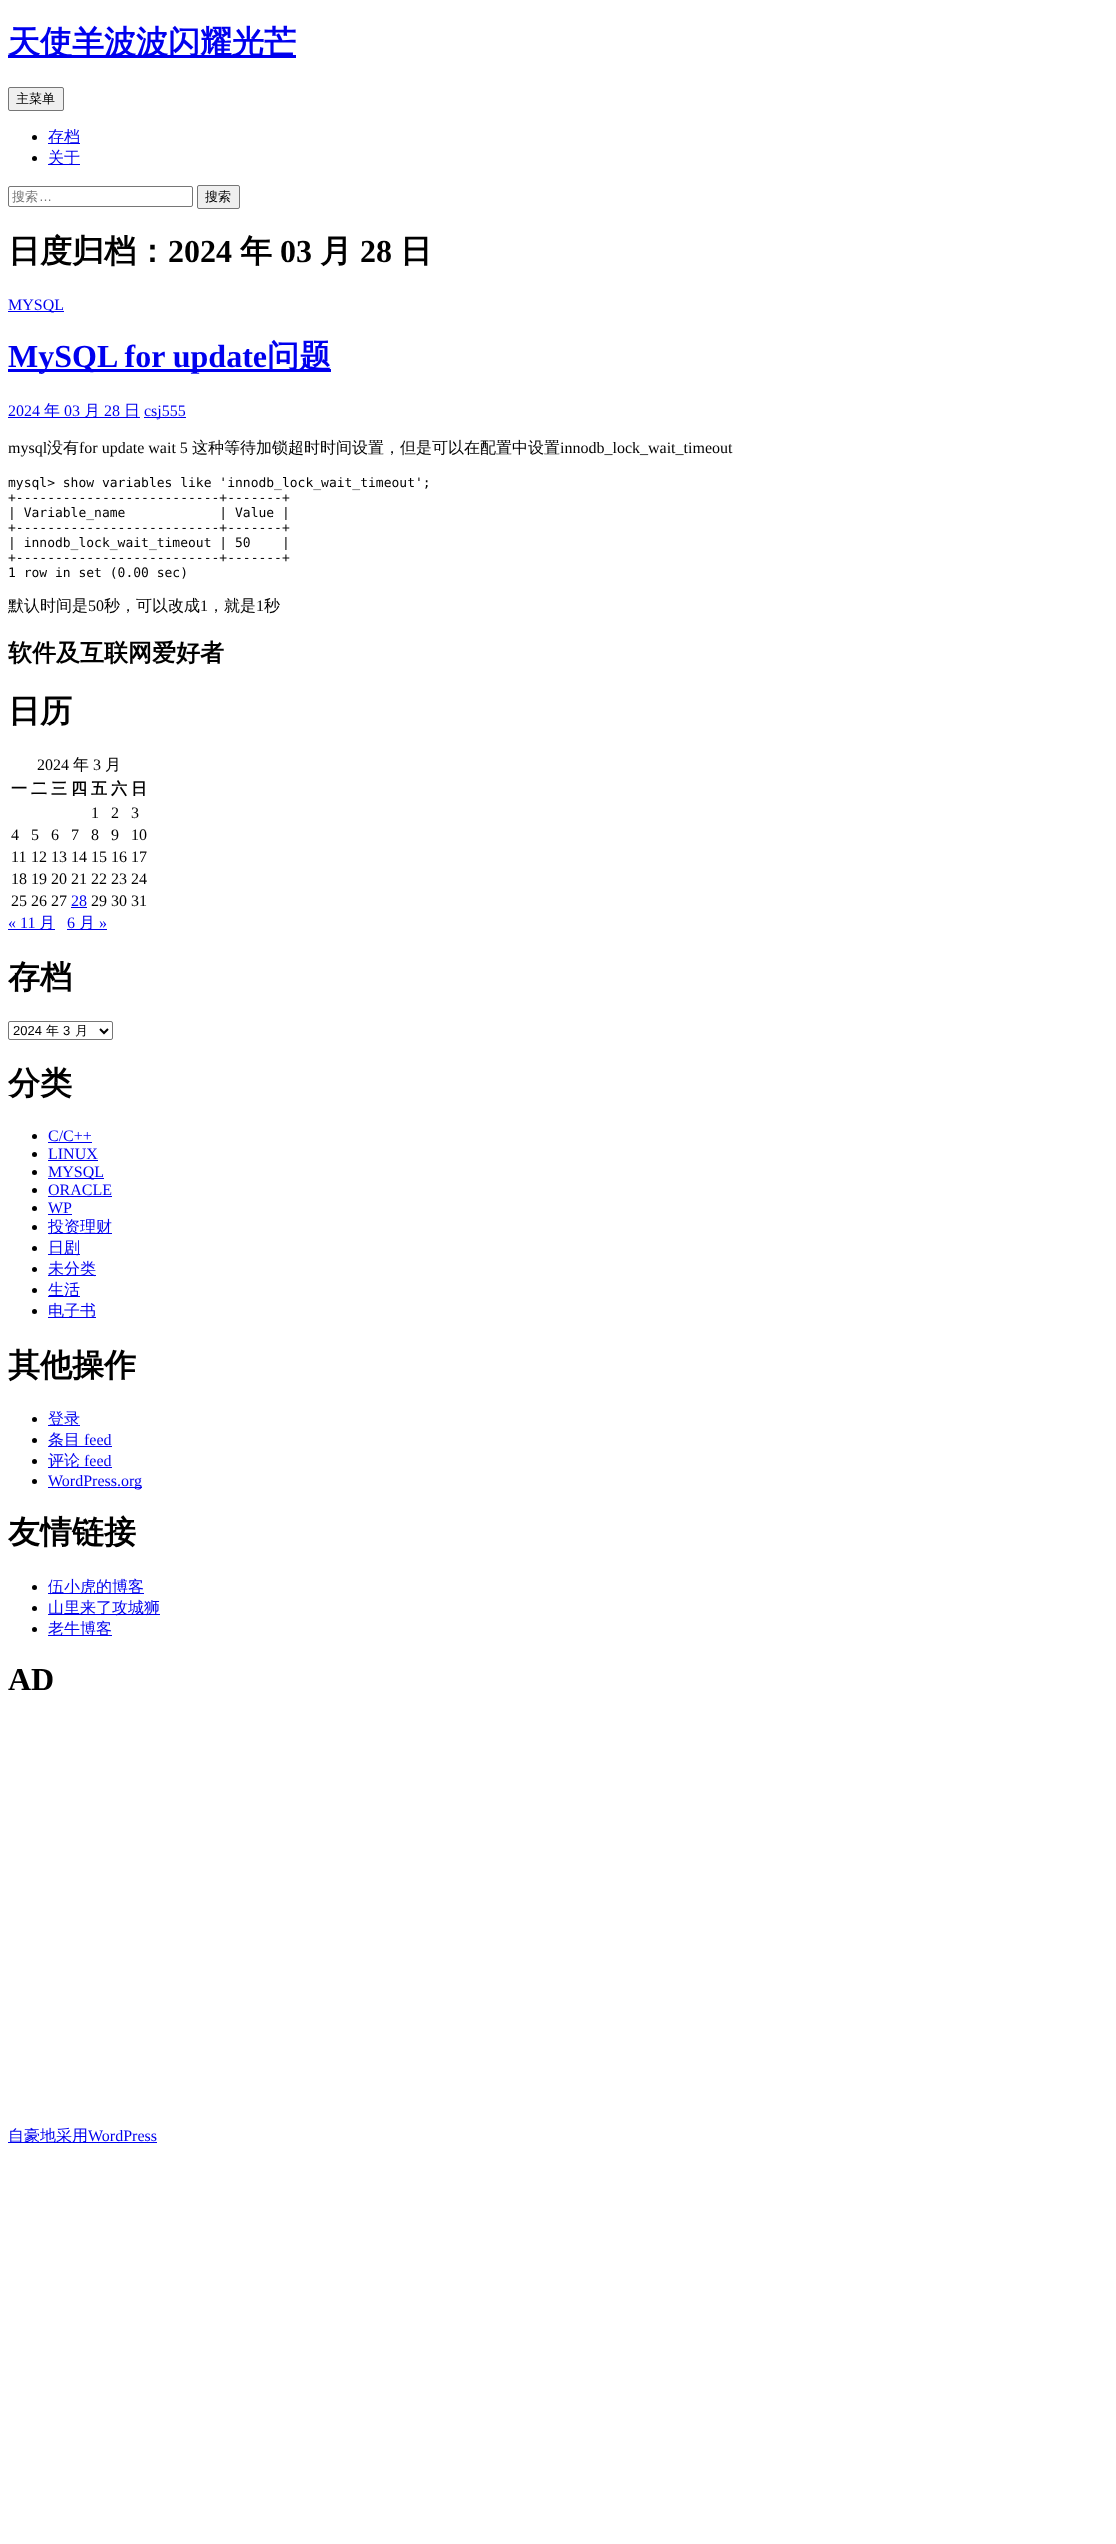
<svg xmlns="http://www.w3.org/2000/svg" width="1116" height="2544">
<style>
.a{font:bold 32px WenQuanYi Zen Hei;fill:#00e}
.b{font:500 13px WenQuanYi Zen Hei;fill:#000}
.c{font:500 16px WenQuanYi Zen Hei;fill:#00e}
.d{font:500 13px WenQuanYi Zen Hei;fill:#757575}
.e{font:13px Liberation Sans;fill:#757575}
.f{font:bold 32px WenQuanYi Zen Hei;fill:#000}
.g{font:bold 32px Liberation Serif;fill:#000}
.h{font:16px Liberation Serif;fill:#00e}
.i{font:bold 32px Liberation Serif;fill:#00e}
.j{font:16px Liberation Serif;fill:#000}
.k{font:500 16px WenQuanYi Zen Hei;fill:#000}
.l{font:13px DejaVu Sans Mono;fill:#000}
.m{font:bold 24px WenQuanYi Zen Hei;fill:#000}
.n{font:bold 16px WenQuanYi Zen Hei;fill:#000}
.o{font:13px Liberation Sans;fill:#000}
</style>
<rect width="100%" height="100%" fill="#fff"/>
<path fill="#00e" d="M8 55h288v3H8z"/>
<rect fill="#efefef" stroke="#767676" x="8.5" y="87.5" width="55" height="23" rx="1.5"/>
<circle fill="#000" cx="34.5" cy="137.5" r="2.5"/>
<path fill="#00e" d="M48 143h32v1H48z"/>
<circle fill="#000" cx="34.5" cy="158.5" r="2.5"/>
<path fill="#00e" d="M48 164h32v1H48z"/>
<rect fill="none" stroke="#767676" x="8.5" y="186.5" width="184" height="20" rx="1.5"/>
<rect fill="#efefef" stroke="#767676" x="197.5" y="185.5" width="42" height="23" rx="1.5"/>
<path fill="#00e" d="M8 311h56v1H8z"/>
<path fill="#00e" d="M8 369h323v3H8z"/>
<path fill="#00e" d="M8 417h132v1H8z"/>
<path fill="#00e" d="M144 417h42v1H144z"/>
<path fill="#00e" d="M71 907h16v1H71z"/>
<path fill="#00e" d="M8 929h47v1H8z"/>
<path fill="#00e" d="M67 929h40v1H67z"/>
<rect fill="none" stroke="#767676" x="8.5" y="1021.5" width="104" height="18" rx="1.5"/>
<path fill="none" stroke="#000" stroke-width="2" d="M100 1029l4 4l4-4"/>
<circle fill="#000" cx="34.5" cy="1136.5" r="2.5"/>
<path fill="#00e" d="M48 1142h44v1H48z"/>
<circle fill="#000" cx="34.5" cy="1154.5" r="2.5"/>
<path fill="#00e" d="M48 1160h50v1H48z"/>
<circle fill="#000" cx="34.5" cy="1172.5" r="2.5"/>
<path fill="#00e" d="M48 1178h56v1H48z"/>
<circle fill="#000" cx="34.5" cy="1190.5" r="2.5"/>
<path fill="#00e" d="M48 1196h64v1H48z"/>
<circle fill="#000" cx="34.5" cy="1208.5" r="2.5"/>
<path fill="#00e" d="M48 1214h24v1H48z"/>
<circle fill="#000" cx="34.5" cy="1227.5" r="2.5"/>
<path fill="#00e" d="M48 1233h64v1H48z"/>
<circle fill="#000" cx="34.5" cy="1248.5" r="2.5"/>
<path fill="#00e" d="M48 1254h32v1H48z"/>
<circle fill="#000" cx="34.5" cy="1269.5" r="2.5"/>
<path fill="#00e" d="M48 1275h48v1H48z"/>
<circle fill="#000" cx="34.5" cy="1290.5" r="2.5"/>
<path fill="#00e" d="M48 1296h32v1H48z"/>
<circle fill="#000" cx="34.5" cy="1311.5" r="2.5"/>
<path fill="#00e" d="M48 1317h48v1H48z"/>
<circle fill="#000" cx="34.5" cy="1419.5" r="2.5"/>
<path fill="#00e" d="M48 1425h32v1H48z"/>
<circle fill="#000" cx="34.5" cy="1440.5" r="2.5"/>
<path fill="#00e" d="M48 1446h64v1H48z"/>
<circle fill="#000" cx="34.5" cy="1461.5" r="2.5"/>
<path fill="#00e" d="M48 1467h64v1H48z"/>
<circle fill="#000" cx="34.5" cy="1481.5" r="2.5"/>
<path fill="#00e" d="M48 1487h94v1H48z"/>
<circle fill="#000" cx="34.5" cy="1587.5" r="2.5"/>
<path fill="#00e" d="M48 1593h96v1H48z"/>
<circle fill="#000" cx="34.5" cy="1608.5" r="2.5"/>
<path fill="#00e" d="M48 1614h112v1H48z"/>
<circle fill="#000" cx="34.5" cy="1629.5" r="2.5"/>
<path fill="#00e" d="M48 1635h64v1H48z"/>
<path fill="#00e" d="M8 2142h149v1H8z"/>
<text class="a" x="8" y="53">天使羊波波闪耀光芒</text>
<text class="b" x="16" y="103">主菜单</text>
<text class="c" x="48" y="142">存档</text>
<text class="c" x="48" y="163">关于</text>
<text class="d" x="12" y="201">搜索</text>
<text class="e" x="39" y="201">…</text>
<text class="b" x="205" y="201">搜索</text>
<text class="f" x="8" y="262">日度归档：</text>
<text class="g" x="168" y="262">2024</text>
<text class="f" x="240" y="262">年</text>
<text class="g" x="280" y="262">03</text>
<text class="f" x="320" y="262">月</text>
<text class="g" x="360" y="262">28</text>
<text class="f" x="400" y="262">日</text>
<text class="h" x="8" y="310">MYSQL</text>
<text class="i" x="8" y="367">MySQL for update</text>
<text class="a" x="267" y="367">问题</text>
<text class="h" x="8" y="416">2024</text>
<text class="c" x="44" y="416">年</text>
<text class="h" x="64" y="416">03</text>
<text class="c" x="84" y="416">月</text>
<text class="h" x="104" y="416">28</text>
<text class="c" x="124" y="416">日</text>
<text class="h" x="144" y="416">csj555</text>
<text class="j" x="8" y="453">mysql</text>
<text class="k" x="47" y="453">没有</text>
<text class="j" x="79" y="453">for update wait 5</text>
<text class="k" x="192" y="453">这种等待加锁超时时间设置，但是可以在配置中设置</text>
<text class="j" x="560" y="453">innodb_lock_wait_timeout</text>
<text class="l" x="8" y="487">mysql&gt; show variables like 'innodb_lock_wait_timeout';</text>
<text class="l" x="8" y="502">+--------------------------+-------+</text>
<text class="l" xml:space="preserve" x="8" y="517">| Variable_name            | Value |</text>
<text class="l" x="8" y="532">+--------------------------+-------+</text>
<text class="l" xml:space="preserve" x="8" y="547">| innodb_lock_wait_timeout | 50    |</text>
<text class="l" x="8" y="562">+--------------------------+-------+</text>
<text class="l" x="8" y="577">1 row in set (0.00 sec)</text>
<text class="k" x="8" y="611">默认时间是</text>
<text class="j" x="88" y="611">50</text>
<text class="k" x="104" y="611">秒，可以改成</text>
<text class="j" x="200" y="611">1</text>
<text class="k" x="208" y="611">，就是</text>
<text class="j" x="256" y="611">1</text>
<text class="k" x="264" y="611">秒</text>
<text class="m" x="8" y="661">软件及互联网爱好者</text>
<text class="f" x="8" y="722">日历</text>
<text class="j" x="37" y="770">2024</text>
<text class="k" x="73" y="770">年</text>
<text class="j" x="93" y="770">3</text>
<text class="k" x="105" y="770">月</text>
<text class="n" x="11" y="794">一</text>
<text class="n" x="31" y="794">二</text>
<text class="n" x="51" y="794">三</text>
<text class="n" x="71" y="794">四</text>
<text class="n" x="91" y="794">五</text>
<text class="n" x="111" y="794">六</text>
<text class="n" x="131" y="794">日</text>
<text class="j" x="91" y="818">1</text>
<text class="j" x="111" y="818">2</text>
<text class="j" x="131" y="818">3</text>
<text class="j" x="11" y="840">4</text>
<text class="j" x="31" y="840">5</text>
<text class="j" x="51" y="840">6</text>
<text class="j" x="71" y="840">7</text>
<text class="j" x="91" y="840">8</text>
<text class="j" x="111" y="840">9</text>
<text class="j" x="131" y="840">10</text>
<text class="j" x="11" y="862">11</text>
<text class="j" x="31" y="862">12 13 14 15 16 17</text>
<text class="j" x="11" y="884">18 19 20 21 22 23 24</text>
<text class="j" x="11" y="906">25 26 27</text>
<text class="h" x="71" y="906">28</text>
<text class="j" x="91" y="906">29 30 31</text>
<text class="h" x="8" y="928">« 11</text>
<text class="c" x="39" y="928">月</text>
<text class="h" x="67" y="928">6</text>
<text class="c" x="79" y="928">月</text>
<text class="h" x="99" y="928">»</text>
<text class="f" x="8" y="988">存档</text>
<text class="o" x="13" y="1035">2024</text>
<text class="b" x="46" y="1035">年</text>
<text class="o" x="63" y="1035">3</text>
<text class="b" x="75" y="1035">月</text>
<text class="f" x="8" y="1094">分类</text>
<text class="h" x="48" y="1141">C/C++</text>
<text class="h" x="48" y="1159">LINUX</text>
<text class="h" x="48" y="1177">MYSQL</text>
<text class="h" x="48" y="1195">ORACLE</text>
<text class="h" x="48" y="1213">WP</text>
<text class="c" x="48" y="1232">投资理财</text>
<text class="c" x="48" y="1253">日剧</text>
<text class="c" x="48" y="1274">未分类</text>
<text class="c" x="48" y="1295">生活</text>
<text class="c" x="48" y="1316">电子书</text>
<text class="f" x="8" y="1376">其他操作</text>
<text class="c" x="48" y="1424">登录</text>
<text class="c" x="48" y="1445">条目</text>
<text class="h" x="84" y="1445">feed</text>
<text class="c" x="48" y="1466">评论</text>
<text class="h" x="84" y="1466">feed</text>
<text class="h" x="48" y="1486">WordPress.org</text>
<text class="f" x="8" y="1543">友情链接</text>
<text class="c" x="48" y="1592">伍小虎的博客</text>
<text class="c" x="48" y="1613">山里来了攻城狮</text>
<text class="c" x="48" y="1634">老牛博客</text>
<text class="g" x="8" y="1690">AD</text>
<text class="c" x="8" y="2141">自豪地采用</text>
<text class="h" x="88" y="2141">WordPress</text>
</svg>
